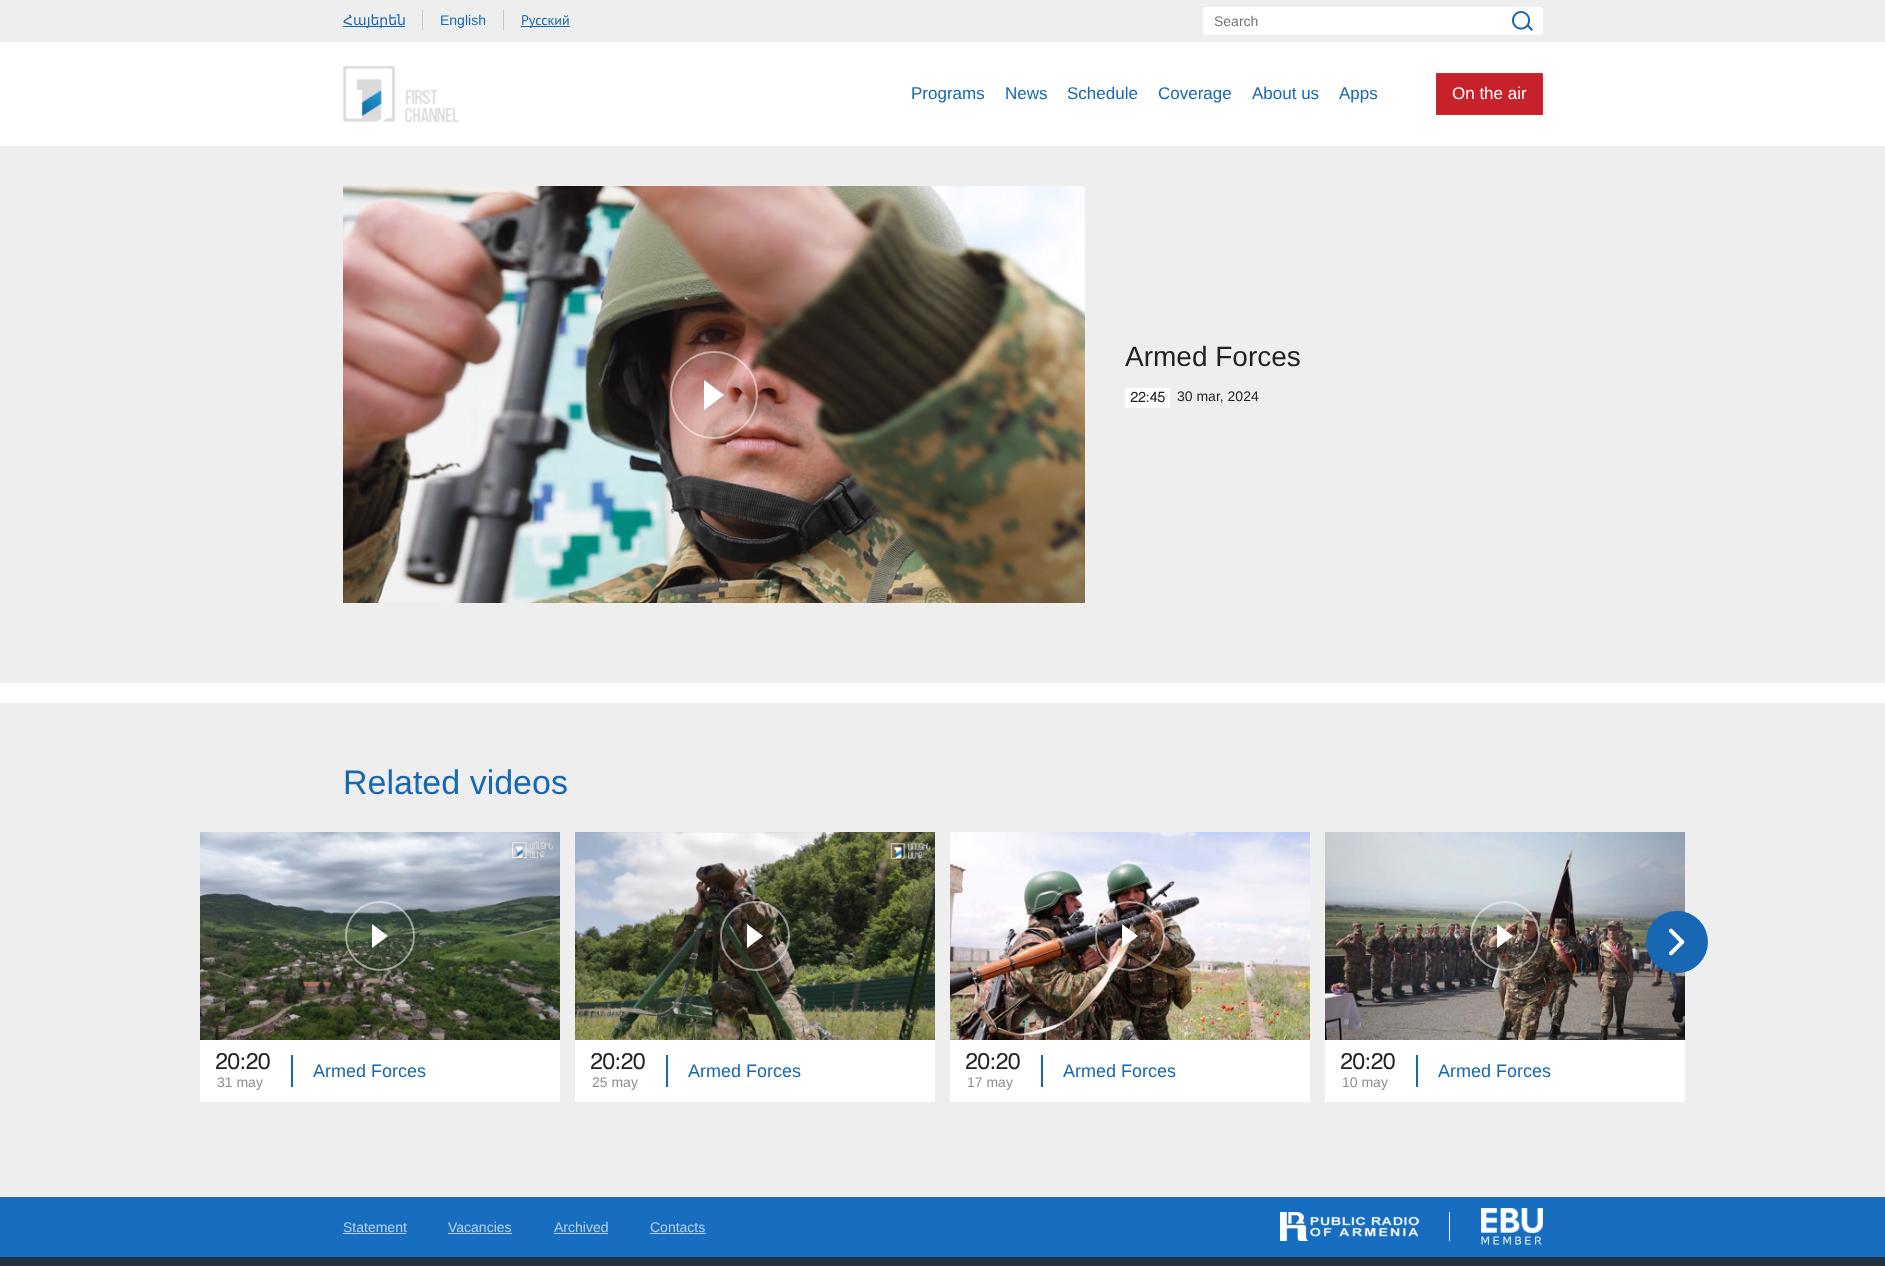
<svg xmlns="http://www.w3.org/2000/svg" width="1885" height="1266">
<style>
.a{font:14px DejaVu Sans;fill:#1767b3}
.b{font:14px Liberation Sans;fill:#1767b3}
.c{font:14px PT Sans;fill:#1767b3}
.d{font:14px Liberation Sans;fill:#757575}
.e{font:17px Liberation Sans;fill:#1767b3}
.f{font:17px Liberation Sans;fill:#fff}
.g{font:28px Liberation Sans;fill:#222}
.h{font:bold 14px Helvetica;fill:#222}
.i{font:14px Liberation Sans;fill:#222}
.j{font:34px Liberation Sans;fill:#1767b3}
.k{font:bold 22px Helvetica;fill:#222}
.l{font:14px Liberation Sans;fill:#8d8d8d}
.m{font:18px Liberation Sans;fill:#1767b3}
.n{font:14px Liberation Sans;fill:#b9d3ec}
</style>
<rect width="100%" height="100%" fill="#fff"/>
<path fill="#eee" d="M0 0h1885v42H0z"/>
<path fill="#1767b3" d="M343 26h62v1H343z"/>
<path fill="#c6c6c6" d="M422 10h1v20H422z"/>
<path fill="#c6c6c6" d="M503 10h1v20H503z"/>
<path fill="#1767b3" d="M521 26h49v1H521z"/>
<rect fill="#fff" x="1203" y="7" width="340" height="28" rx="3"/>
<image href="1.png" x="1512" y="11" width="21" height="20"/>
<image href="2.png" x="343" y="66" width="116" height="56"/>
<path fill="#c7212a" stroke="#d22730" d="M1436.5 73.5h106v41H1436.5z"/>
<path fill="#eee" d="M0 146h1885v537H0z"/>
<image href="3.png" x="343" y="186" width="742" height="417"/>
<image href="4.png" x="704" y="380" width="20" height="30"/>
<circle fill="none" stroke="#ffffff80" stroke-width="2" cx="714" cy="395" r="43"/>
<path fill="#fff" d="M1125 388h45v20H1125z"/>
<path fill="#eee" d="M0 703h1885v494H0z"/>
<image href="12.png" x="1325" y="832" width="360" height="208"/>
<circle fill="#1767b3" cx="1677" cy="942" r="31"/>
<image href="5.png" x="1669" y="928" width="16" height="28"/>
<image href="6.png" x="200" y="832" width="360" height="208"/>
<image href="7.png" x="372" y="924" width="16" height="24"/>
<circle fill="none" stroke="#ffffff80" stroke-width="2" cx="380" cy="936" r="34"/>
<path fill="#fff" d="M200 1040h360v62H200z"/>
<path fill="#1767b3" d="M291 1055h2v32H291z"/>
<image href="8.png" x="575" y="832" width="360" height="208"/>
<image href="9.png" x="747" y="924" width="16" height="24"/>
<circle fill="none" stroke="#ffffff80" stroke-width="2" cx="755" cy="936" r="34"/>
<path fill="#fff" d="M575 1040h360v62H575z"/>
<path fill="#1767b3" d="M666 1055h2v32H666z"/>
<image href="10.png" x="950" y="832" width="360" height="208"/>
<image href="11.png" x="1122" y="924" width="16" height="24"/>
<circle fill="none" stroke="#ffffff80" stroke-width="2" cx="1130" cy="936" r="34"/>
<path fill="#fff" d="M950 1040h360v62H950z"/>
<path fill="#1767b3" d="M1041 1055h2v32H1041z"/>
<image href="13.png" x="1497" y="924" width="16" height="24"/>
<circle fill="none" stroke="#ffffff80" stroke-width="2" cx="1505" cy="936" r="34"/>
<path fill="#fff" d="M1325 1040h360v62H1325z"/>
<path fill="#1767b3" d="M1416 1055h2v32H1416z"/>
<path fill="#176dbf" d="M0 1197h1885v60H0z"/>
<path fill="#b9d3ec" d="M343 1233h63v1H343z"/>
<path fill="#b9d3ec" d="M448 1233h64v1H448z"/>
<path fill="#b9d3ec" d="M554 1233h54v1H554z"/>
<path fill="#b9d3ec" d="M650 1233h56v1H650z"/>
<path fill="#fff" d="M1449 1212h1v29H1449z"/>
<image href="14.png" x="1280" y="1212" width="139" height="29"/>
<image href="15.png" x="1481" y="1208" width="62" height="37"/>
<path fill="#223140" d="M0 1257h1885v9H0z"/>
<text class="a" x="343" y="25">Հայերեն</text>
<text class="b" x="440" y="25">English</text>
<text class="c" x="521" y="25">Русский</text>
<text class="d" x="1214" y="26">Search</text>
<text class="e" x="911" y="99">Programs</text>
<text class="e" x="1005" y="99">News</text>
<text class="e" x="1067" y="99">Schedule</text>
<text class="e" x="1158" y="99">Coverage</text>
<text class="e" x="1252" y="99">About us</text>
<text class="e" x="1339" y="99">Apps</text>
<text class="f" x="1452" y="99">On the air</text>
<text class="g" x="1125" y="366">Armed Forces</text>
<text class="h" x="1130" y="402">22:45</text>
<text class="i" x="1177" y="401">30 mar, 2024</text>
<text class="j" x="343" y="794">Related videos</text>
<text class="k" x="215" y="1069">20:20</text>
<text class="l" x="217" y="1087">31 may</text>
<text class="m" x="313" y="1077">Armed Forces</text>
<text class="k" x="590" y="1069">20:20</text>
<text class="l" x="592" y="1087">25 may</text>
<text class="m" x="688" y="1077">Armed Forces</text>
<text class="k" x="965" y="1069">20:20</text>
<text class="l" x="967" y="1087">17 may</text>
<text class="m" x="1063" y="1077">Armed Forces</text>
<text class="k" x="1340" y="1069">20:20</text>
<text class="l" x="1342" y="1087">10 may</text>
<text class="m" x="1438" y="1077">Armed Forces</text>
<text class="n" x="343" y="1232">Statement</text>
<text class="n" x="448" y="1232">Vacancies</text>
<text class="n" x="554" y="1232">Archived</text>
<text class="n" x="650" y="1232">Contacts</text>
</svg>
